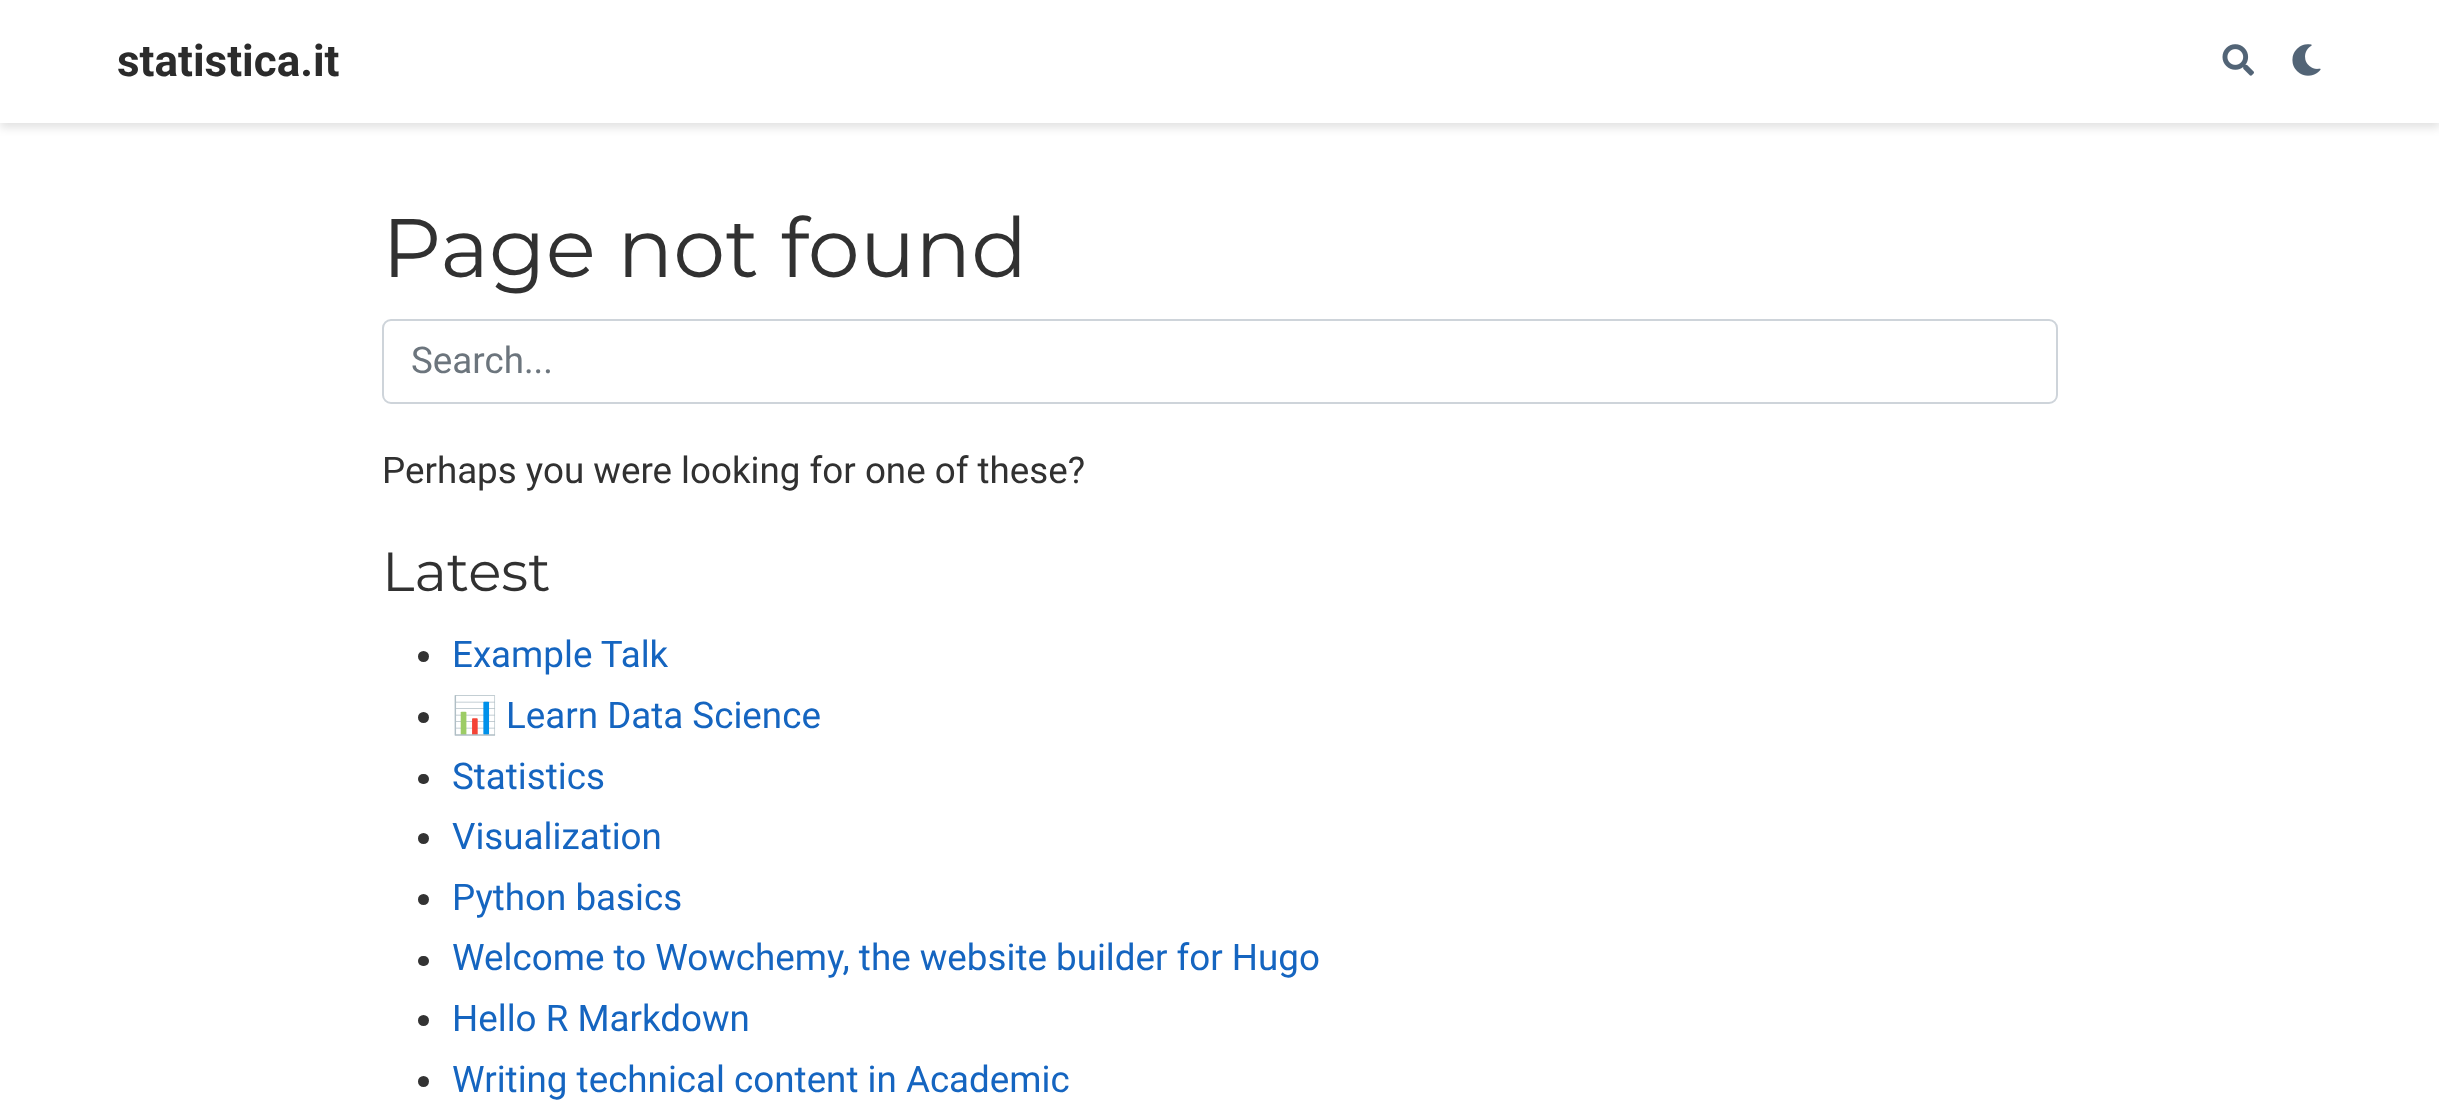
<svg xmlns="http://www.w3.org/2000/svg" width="2439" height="1107">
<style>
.a{font:bold 44px Roboto;fill:#2b2b2b}
.b{font:82.75px Montserrat;fill:#313131}
.c{font:36.75px Roboto;fill:#6c757d}
.d{font:36.75px Roboto;fill:#313131}
.e{font:55px Montserrat;fill:#313131}
.f{font:36.75px Roboto;fill:#1565c0}
.g{font:36.75px Noto Color Emoji;fill:#1565c0}
</style>
<rect width="100%" height="100%" fill="#fff"/>
<path fill="#0000001c" filter="blur(4.5px)" d="M0 5h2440v123H0z"/>
<path fill="#fff" d="M0 0h2439v123H0z"/>
<image href="1.png" x="2222" y="44" width="32" height="32"/>
<image href="2.png" x="2292" y="44" width="29" height="32"/>
<rect fill="none" stroke="#ced4da" stroke-width="2" x="383" y="320" width="1674" height="83" rx="8"/>
<circle fill="#333" cx="423.5" cy="656.5" r="5.5"/>
<circle fill="#333" cx="423.5" cy="717.5" r="5.5"/>
<rect fill="#333" x="418" y="774" width="11" height="10" rx="5"/>
<circle fill="#333" cx="423.5" cy="838.5" r="5.5"/>
<circle fill="#333" cx="423.5" cy="899.5" r="5.5"/>
<rect fill="#333" x="418" y="956" width="11" height="10" rx="5"/>
<circle fill="#333" cx="423.5" cy="1020.5" r="5.5"/>
<circle fill="#333" cx="423.5" cy="1081.5" r="5.5"/>
<text class="a" x="117" y="76">statistica.it</text>
<text class="b" x="382" y="277">Page not found</text>
<text class="c" x="411" y="373">Search...</text>
<text class="d" x="382" y="483">Perhaps you were looking for one of these?</text>
<text class="e" x="382" y="591">Latest</text>
<text class="f" x="452" y="667">Example Talk</text>
<text class="g" x="452" y="728">📊</text>
<text class="f" x="506" y="728">Learn Data Science</text>
<text class="f" x="452" y="789">Statistics</text>
<text class="f" x="452" y="849">Visualization</text>
<text class="f" x="452" y="910">Python basics</text>
<text class="f" x="452" y="970">Welcome to Wowchemy, the website builder for Hugo</text>
<text class="f" x="452" y="1031">Hello R Markdown</text>
<text class="f" x="452" y="1092">Writing technical content in Academic</text>
</svg>
